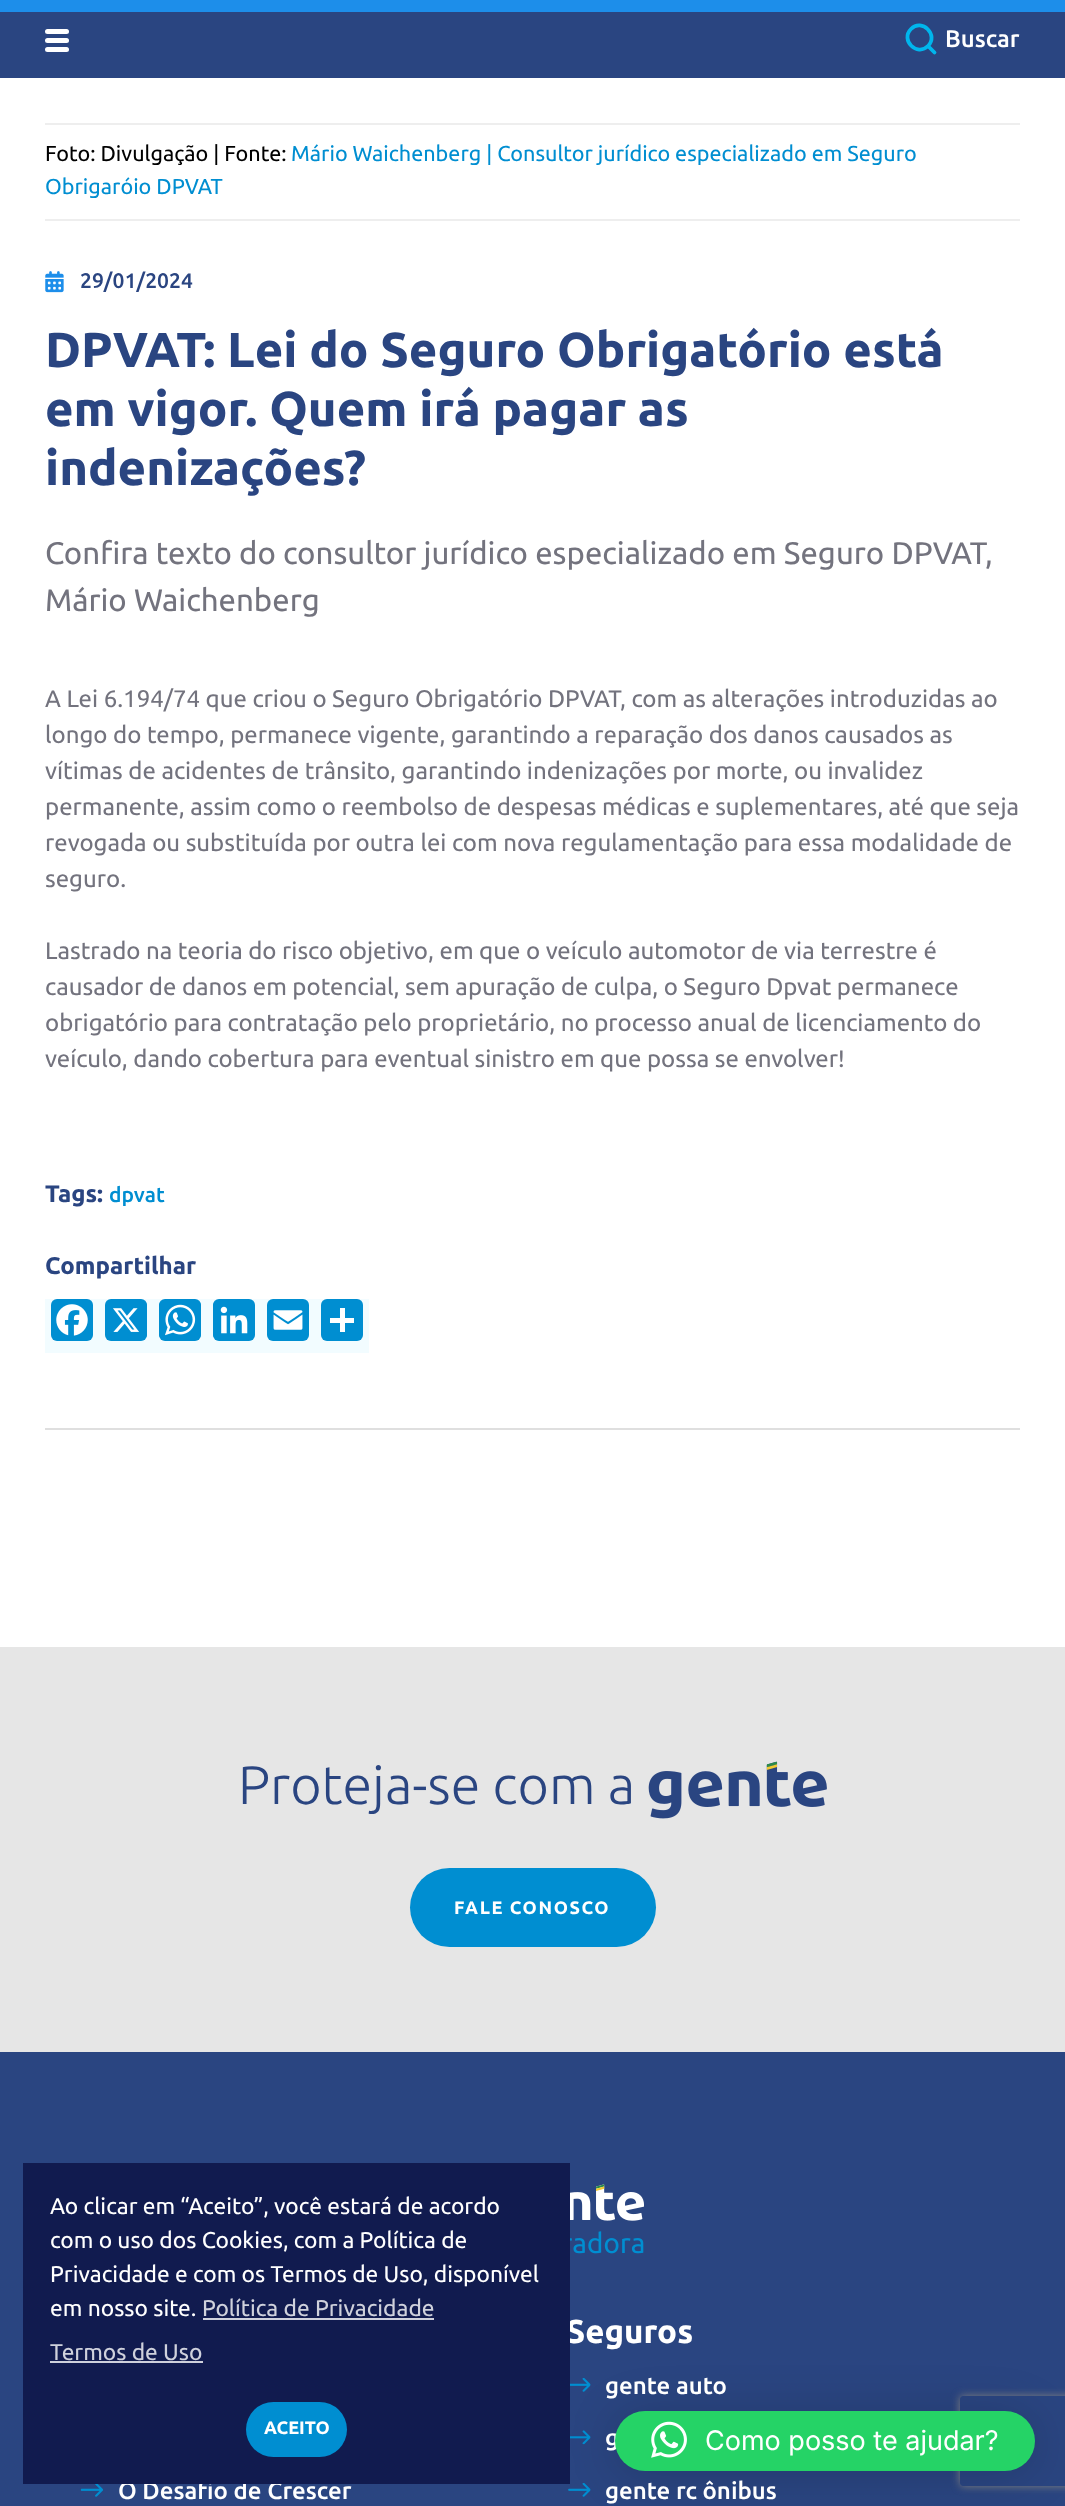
<svg xmlns="http://www.w3.org/2000/svg" width="1065" height="2506">
<style>
.a{font:500 24px Ubuntu;fill:#fff}
.b{font:21.6px Ubuntu;fill:#000}
.c{font:21.6px Ubuntu;fill:#008ed1}
.d{font:500 21px Ubuntu;fill:#2a4581}
.e{font:bold 49px Ubuntu;fill:#2a4581}
.f{font:31.2px Ubuntu;fill:#73737e}
.g{font:24px Ubuntu;fill:#73737e}
.h{font:bold 24px Ubuntu;fill:#2a4581}
.i{font:500 21px Ubuntu;fill:#008ed1}
.j{font:300 54px Ubuntu;fill:#2a4581}
.k{font:bold 18px Ubuntu;letter-spacing:1.6px;fill:#fff}
.l{font:bold 33px Ubuntu;fill:#fff}
.m{font:22.8px Ubuntu;fill:#fff}
.n{font:22.8px Ubuntu;fill:#cfd1dc}
.o{font:bold 18px Ubuntu;fill:#fff}
.p{font:27px Inter;fill:#fff}
</style>
<defs>
<clipPath id="clip1"><path d="M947 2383h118v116h-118zm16 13h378c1.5 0 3 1.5 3 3v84c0 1.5-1.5 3-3 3h-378c-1.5 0-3-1.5-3-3v-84c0-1.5 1.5-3 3-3z" clip-rule="evenodd"/></clipPath>
</defs>
<rect width="100%" height="100%" fill="#fff"/>
<path fill="#1d8eea" d="M0 0h1065v12H0z"/>
<path fill="#2a4581" d="M0 12h1065v66H0z"/>
<rect fill="#fff" x="45" y="29" width="24" height="5" rx="2.5"/>
<rect fill="#fff" x="45" y="38" width="24" height="5" rx="2.5"/>
<rect fill="#fff" x="45" y="47" width="24" height="5" rx="2.5"/>
<path fill="none" stroke="#00b6ed" stroke-width="3.8" stroke-linecap="round" stroke-linejoin="round" d="M934.5 52.5l-6.5-6.5m0 0c11-11-6-28-17-17c-11 11 6 28 17 17"/>
<path fill="#eee" d="M45 123h975v2H45z"/>
<path fill="#eee" d="M45 219h975v2H45z"/>
<image href="1.png" x="45" y="271" width="19" height="22"/>
<path fill="#dfdfdf" d="M45 1428h975v2H45z"/>
<path fill="#f2fcff" d="M45 1299h324v54H45z"/>
<rect fill="#008ed1" x="51" y="1299" width="42" height="42" rx="6"/>
<image href="2.png" x="56" y="1304" width="32" height="32"/>
<rect fill="#008ed1" x="105" y="1299" width="42" height="42" rx="6"/>
<image href="3.png" x="113" y="1308" width="26" height="24"/>
<rect fill="#008ed1" x="159" y="1299" width="42" height="42" rx="6"/>
<image href="4.png" x="165" y="1304" width="31" height="32"/>
<rect fill="#008ed1" x="213" y="1299" width="42" height="42" rx="6"/>
<image href="5.png" x="220" y="1306" width="28" height="28"/>
<rect fill="#008ed1" x="267" y="1299" width="42" height="42" rx="6"/>
<image href="6.png" x="273" y="1310" width="30" height="20"/>
<rect fill="#008ed1" x="321" y="1299" width="42" height="42" rx="6"/>
<path fill="#fff" d="M340 1308h5v24H340z"/>
<path fill="#fff" d="M330 1318h24v5H330z"/>
<path fill="#e6e6e6" d="M0 1647h1065v405H0z"/>
<image href="7.png" x="648" y="1761" width="179" height="58"/>
<rect fill="#008ed1" x="410" y="1868" width="246" height="79" rx="39.5"/>
<path fill="#2a4581" d="M0 2052h1065v454H0z"/>
<image href="8.png" x="570" y="2184" width="74" height="70"/>
<image href="9.png" x="80" y="2484" width="23" height="13"/>
<image href="10.png" x="570" y="2378" width="21" height="14"/>
<image href="11.png" x="570" y="2430" width="21" height="15"/>
<image href="12.png" x="568" y="2483" width="23" height="14"/>
<rect fill="#00000029" filter="blur(24px)" x="615" y="2414" width="420" height="60" rx="30"/>
<g clip-path="url(#clip1)">
<rect fill="#808080" filter="blur(4px)" x="960" y="2396" width="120" height="90" rx="3"/>
</g>
<text class="a" x="945" y="47">Buscar</text>
<text class="b" x="45" y="161">Foto: Divulgação | Fonte:</text>
<text class="c" x="291" y="161">Mário Waichenberg | Consultor jurídico especializado em Seguro</text>
<text class="c" x="45" y="194">Obrigaróio DPVAT</text>
<text class="d" x="80" y="288">29/01/2024</text>
<text class="e" x="45" y="367">DPVAT: Lei do Seguro Obrigatório está</text>
<text class="e" x="45" y="426">em vigor. Quem irá pagar as</text>
<text class="e" x="45" y="485">indenizações?</text>
<text class="f" x="45" y="564">Confira texto do consultor jurídico especializado em Seguro DPVAT,</text>
<text class="f" x="45" y="611">Mário Waichenberg</text>
<text class="g" x="45" y="707">A Lei 6.194/74 que criou o Seguro Obrigatório DPVAT, com as alterações introduzidas ao</text>
<text class="g" x="45" y="743">longo do tempo, permanece vigente, garantindo a reparação dos danos causados as</text>
<text class="g" x="45" y="779">vítimas de acidentes de trânsito, garantindo indenizações por morte, ou invalidez</text>
<text class="g" x="45" y="815">permanente, assim como o reembolso de despesas médicas e suplementares, até que seja</text>
<text class="g" x="45" y="851">revogada ou substituída por outra lei com nova regulamentação para essa modalidade de</text>
<text class="g" x="45" y="887">seguro.</text>
<text class="g" x="45" y="959">Lastrado na teoria do risco objetivo, em que o veículo automotor de via terrestre é</text>
<text class="g" x="45" y="995">causador de danos em potencial, sem apuração de culpa, o Seguro Dpvat permanece</text>
<text class="g" x="45" y="1031">obrigatório para contratação pelo proprietário, no processo anual de licenciamento do</text>
<text class="g" x="45" y="1067">veículo, dando cobertura para eventual sinistro em que possa se envolver!</text>
<text class="h" x="45" y="1202">Tags:</text>
<text class="i" x="109" y="1202">dpvat</text>
<text class="h" x="45" y="1274">Compartilhar</text>
<text class="j" x="238" y="1804">Proteja-se com a</text>
<text class="k" x="454" y="1914">FALE CONOSCO</text>
<text class="a" x="118" y="2499">O Desafio de Crescer</text>
<text class="l" x="566" y="2343">Seguros</text>
<text class="a" x="605" y="2394">gente auto</text>
<text class="a" x="605" y="2446">g</text>
<text class="a" x="605" y="2499">gente rc ônibus</text>
<path fill="#111b4f" d="M23 2163h547v321H23z"/>
<text class="m" x="50" y="2214">Ao clicar em “Aceito”, você estará de acordo</text>
<text class="m" x="50" y="2248">com o uso dos Cookies, com a Política de</text>
<text class="m" x="50" y="2282">Privacidade e com os Termos de Uso, disponível</text>
<text class="m" x="50" y="2316">em nosso site.</text>
<text class="n" x="202" y="2316">Política de Privacidade</text>
<path fill="#cfd1dc" d="M203 2318h231v2H203z"/>
<text class="n" x="50" y="2360">Termos de Uso</text>
<path fill="#cfd1dc" d="M50 2361h153v2H50z"/>
<rect fill="#008ed1" x="246" y="2402" width="101" height="55" rx="27.5"/>
<text class="o" x="264" y="2434">ACEITO</text>
<rect fill="#25d366" x="615" y="2411" width="420" height="60" rx="30"/>
<image href="13.png" x="651" y="2421" width="36" height="37"/>
<text class="p" x="705" y="2450">Como posso te ajudar?</text>
</svg>
